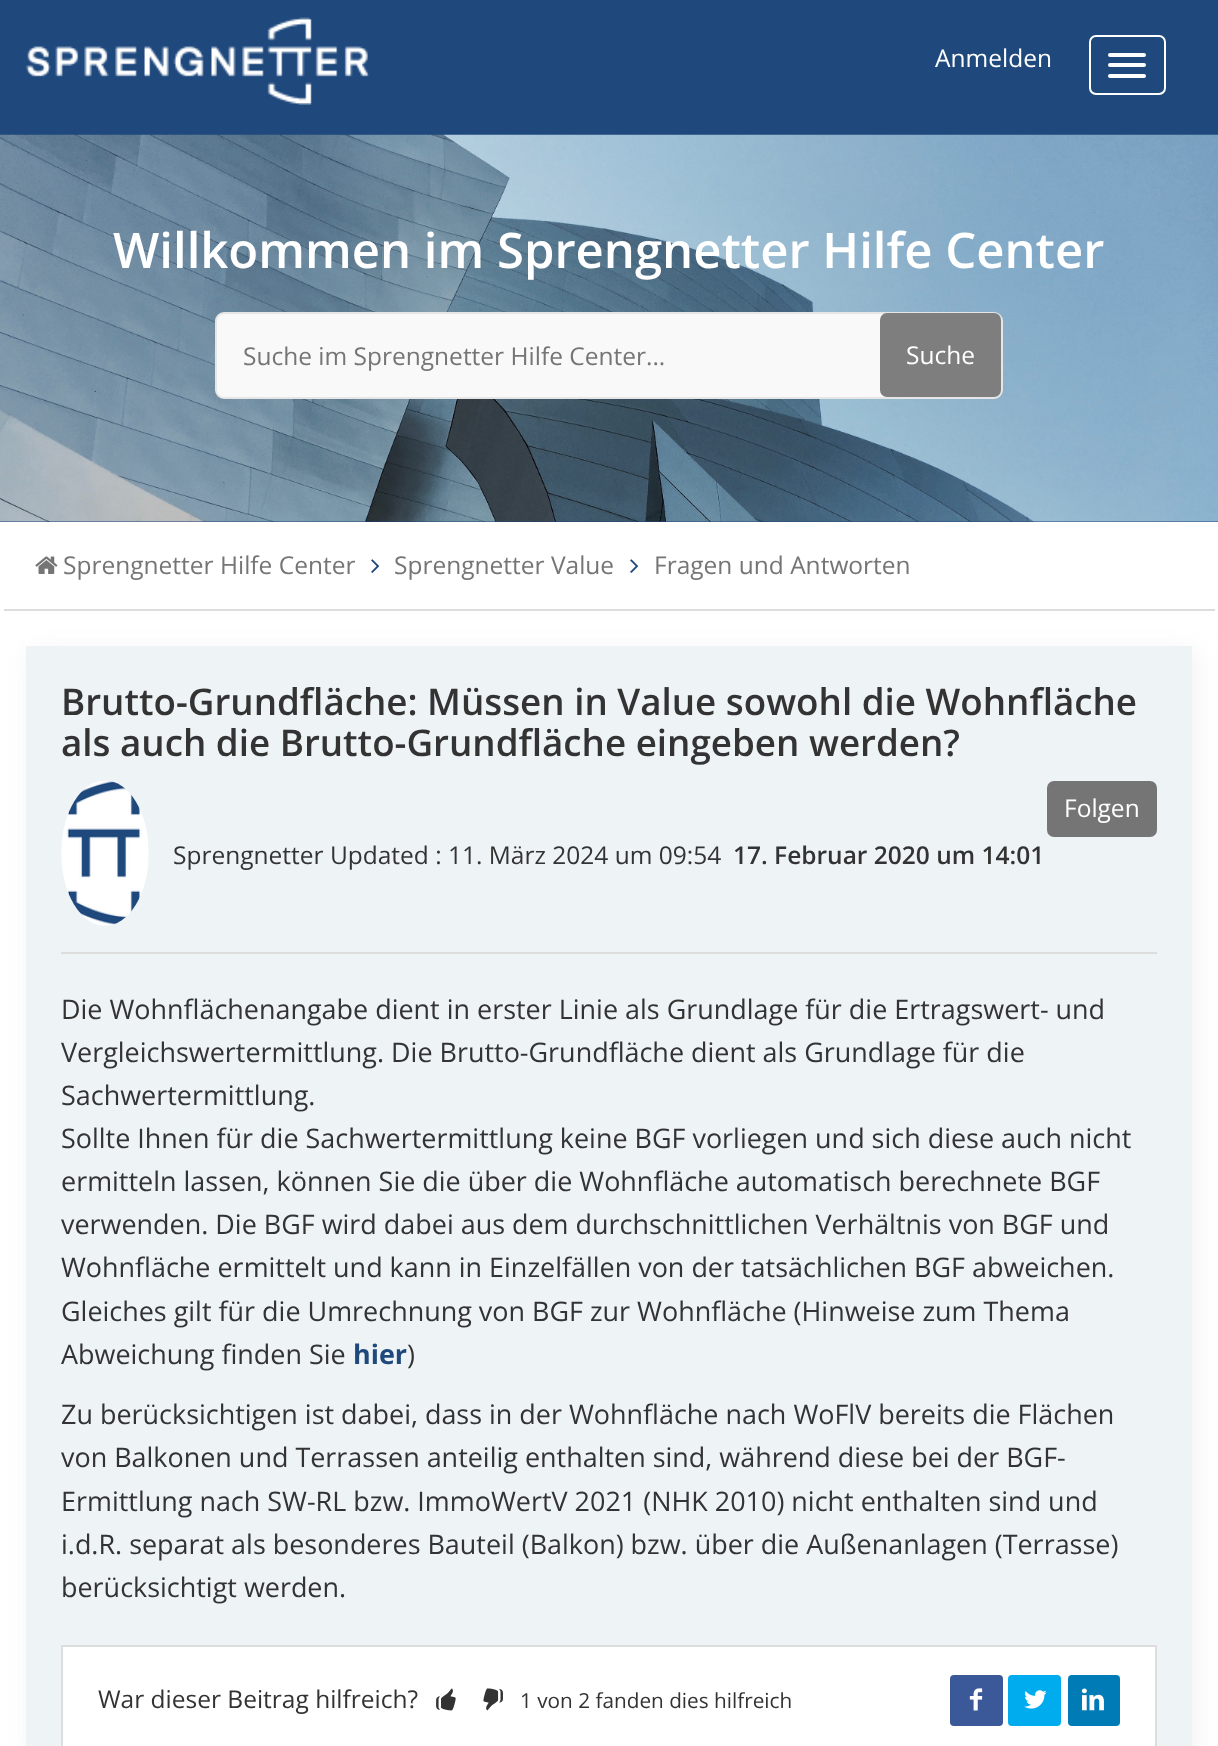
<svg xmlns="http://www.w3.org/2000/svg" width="1218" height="1746">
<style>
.a{font:24.5px Open Sans;fill:#fff}
.b{font:600 49px Open Sans;fill:#fff}
.c{font:24.5px Open Sans;fill:#757575}
.d{font:600 36.75px Open Sans;fill:#333}
.e{font:24.5px Open Sans;fill:#333}
.f{font:600 24.5px Open Sans;fill:#333}
.g{font:26.95px Open Sans;fill:#333}
.h{font:bold 26.95px Open Sans;fill:#1f497d}
.i{font:20.75px Open Sans;fill:#333}
</style>
<rect width="100%" height="100%" fill="#fff"/>
<path fill="#1f497d" d="M0 0h1218v135H0z"/>
<image href="1.png" x="26" y="17" width="344" height="88"/>
<rect fill="none" stroke="#fff" stroke-width="2" x="1090" y="36" width="75" height="58" rx="6"/>
<rect fill="#fff" x="1108" y="53" width="38" height="4" rx="2"/>
<rect fill="#fff" x="1108" y="63" width="38" height="4" rx="2"/>
<rect fill="#fff" x="1108" y="74" width="38" height="4" rx="2"/>
<path fill="#1f497d" d="M0 521h1218v1H0z"/>
<image href="2.png" x="0" y="134" width="1218" height="388"/>
<rect fill="#f9f9f9" stroke="#e6e6e6" stroke-width="2" x="216" y="313" width="786" height="85" rx="8"/>
<rect fill="#7e7e7e" x="880" y="313" width="121" height="84" rx="7"/>
<path fill="#ddd" d="M4 609h1211v2H4z"/>
<image href="3.png" x="35" y="556" width="23" height="18"/>
<image href="4.png" x="371" y="559" width="9" height="14"/>
<image href="4.png" x="630" y="559" width="9" height="14"/>
<path fill="#e6e4e482" filter="blur(12px)" d="M30 651h1165v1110H30z"/>
<path fill="#eef3f6" d="M26 646h1166v1100H26z"/>
<rect fill="#757575" x="1047" y="781" width="110" height="56" rx="7"/>
<path fill="#ddd" d="M61 952h1096v2H61z"/>
<image href="5.png" x="61" y="780" width="88" height="146"/>
<path fill="#fff" stroke="#ddd" stroke-width="2" d="M62 1646h1094v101H62z"/>
<image href="6.png" x="436" y="1688" width="20" height="23"/>
<image href="7.png" x="483" y="1688" width="20" height="23"/>
<rect fill="#3b5998" x="950" y="1675" width="53" height="51" rx="4"/>
<image href="8.png" x="969" y="1688" width="14" height="23"/>
<rect fill="#00aced" x="1008" y="1675" width="53" height="51" rx="4"/>
<image href="9.png" x="1024" y="1690" width="23" height="19"/>
<rect fill="#007bb6" x="1068" y="1675" width="52" height="51" rx="4"/>
<image href="10.png" x="1081" y="1688" width="23" height="23"/>
<text class="a" x="935" y="67">Anmelden</text>
<text class="b" x="113" y="268">Willkommen im Sprengnetter Hilfe Center</text>
<text class="c" x="243" y="365">Suche im Sprengnetter Hilfe Center...</text>
<text class="a" x="906" y="364">Suche</text>
<text class="c" x="63" y="574">Sprengnetter Hilfe Center</text>
<text class="c" x="394" y="574">Sprengnetter Value</text>
<text class="c" x="654" y="574">Fragen und Antworten</text>
<text class="d" x="61" y="715">Brutto-Grundfläche: Müssen in Value sowohl die Wohnfläche</text>
<text class="d" x="61" y="756">als auch die Brutto-Grundfläche eingeben werden?</text>
<text class="a" x="1064" y="817">Folgen</text>
<text class="e" x="173" y="864">Sprengnetter Updated : 11. März 2024 um 09:54</text>
<text class="f" x="733" y="864">17. Februar 2020 um 14:01</text>
<text class="g" x="61" y="1019">Die Wohnflächenangabe dient in erster Linie als Grundlage für die Ertragswert- und</text>
<text class="g" x="61" y="1062">Vergleichswertermittlung. Die Brutto-Grundfläche dient als Grundlage für die</text>
<text class="g" x="61" y="1105">Sachwertermittlung.</text>
<text class="g" x="61" y="1148">Sollte Ihnen für die Sachwertermittlung keine BGF vorliegen und sich diese auch nicht</text>
<text class="g" x="61" y="1191">ermitteln lassen, können Sie die über die Wohnfläche automatisch berechnete BGF</text>
<text class="g" x="61" y="1234">verwenden. Die BGF wird dabei aus dem durchschnittlichen Verhältnis von BGF und</text>
<text class="g" x="61" y="1277">Wohnfläche ermittelt und kann in Einzelfällen von der tatsächlichen BGF abweichen.</text>
<text class="g" x="61" y="1321">Gleiches gilt für die Umrechnung von BGF zur Wohnfläche (Hinweise zum Thema</text>
<text class="g" x="61" y="1364">Abweichung finden Sie</text>
<text class="h" x="353" y="1364">hier</text>
<text class="g" x="407" y="1364">)</text>
<text class="g" x="61" y="1424">Zu berücksichtigen ist dabei, dass in der Wohnfläche nach WoFlV bereits die Flächen</text>
<text class="g" x="61" y="1467">von Balkonen und Terrassen anteilig enthalten sind, während diese bei der BGF-</text>
<text class="g" x="61" y="1511">Ermittlung nach SW-RL bzw. ImmoWertV 2021 (NHK 2010) nicht enthalten sind und</text>
<text class="g" x="61" y="1554">i.d.R. separat als besonderes Bauteil (Balkon) bzw. über die Außenanlagen (Terrasse)</text>
<text class="g" x="61" y="1597">berücksichtigt werden.</text>
<text class="e" x="98" y="1708">War dieser Beitrag hilfreich?</text>
<text class="i" x="520" y="1708">1 von 2 fanden dies hilfreich</text>
</svg>
